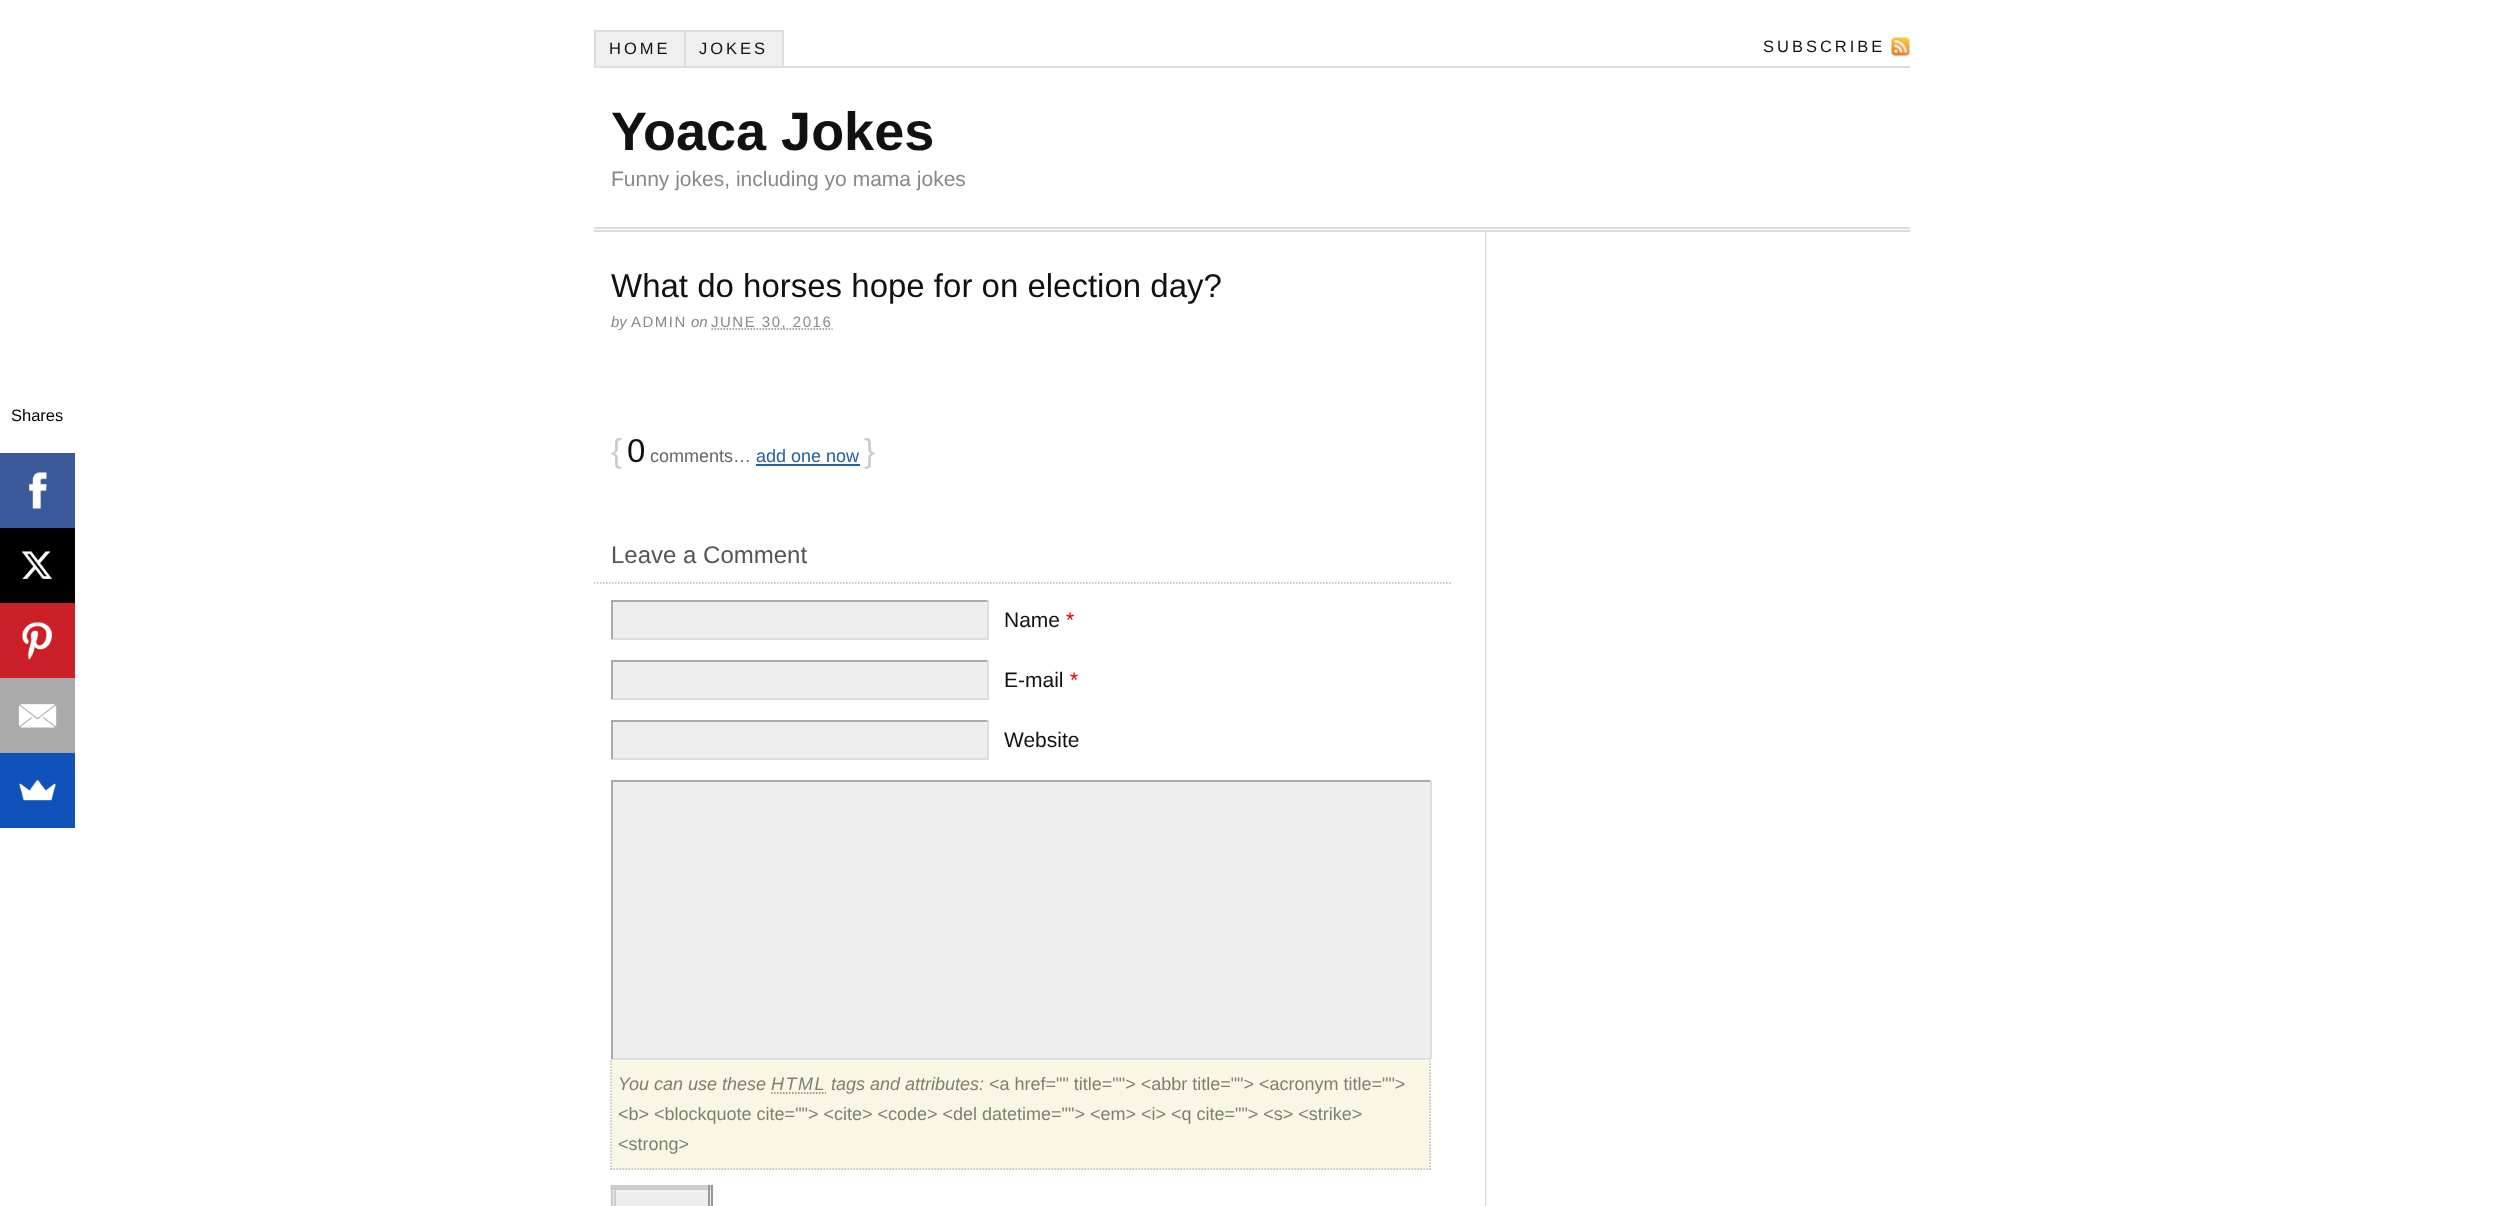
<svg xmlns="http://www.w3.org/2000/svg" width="2503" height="1206">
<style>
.a{font:16.5px Liberation Sans;fill:#000}
.b{font:16.5px Liberation Sans;letter-spacing:3px;fill:#111}
.c{font:bold 54px Liberation Sans;fill:#111}
.d{font:21px Liberation Sans;fill:#888}
.e{font:33px Liberation Sans;fill:#111}
.f{font:italic 15px Liberation Sans;fill:#888}
.g{font:15px Liberation Sans;letter-spacing:1.5px;fill:#888}
.h{font:33px Liberation Sans;fill:#ccc}
.i{font:18px Liberation Sans;fill:#666}
.j{font:18px Liberation Sans;fill:#2361a1}
.k{font:24px Liberation Sans;fill:#555}
.l{font:21px Liberation Sans;fill:#111}
.m{font:21px Liberation Sans;fill:#d00}
.n{font:italic 18px Liberation Sans;fill:#807e70}
.o{font:italic 18px Liberation Sans;letter-spacing:1.5px;fill:#807e70}
.p{font:18px Liberation Sans;fill:#807e70}
</style>
<rect width="100%" height="100%" fill="#fff"/>
<path fill="#3b5998" d="M0 453h75v75H0z"/>
<image href="1.png" x="29" y="472" width="18" height="37"/>
<path fill="#000" d="M0 528h75v75H0z"/>
<image href="2.png" x="21" y="551" width="31" height="28"/>
<path fill="#cb2027" d="M0 603h75v75H0z"/>
<image href="3.png" x="22" y="622" width="30" height="38"/>
<path fill="#aaa" d="M0 678h75v75H0z"/>
<image href="4.png" x="18" y="704" width="39" height="24"/>
<path fill="#0f52ba" d="M0 753h75v75H0z"/>
<image href="5.png" x="19" y="780" width="37" height="21"/>
<path fill="#ddd" d="M784 66h1126v2H784z"/>
<path fill="#ddd" d="M594 30h2v38H594z"/>
<path fill="#efefef" d="M596 32h88v34H596z"/>
<path fill="#ddd" d="M596 30h187v2H596z"/>
<path fill="#ddd" d="M684 30h2v38H684z"/>
<path fill="#ddd" d="M596 66h90v2H596z"/>
<path fill="#efefef" d="M686 32h96v34H686z"/>
<path fill="#ddd" d="M782 30h2v38H782z"/>
<path fill="#ddd" d="M686 66h97v2H686z"/>
<image href="6.png" x="1891" y="37" width="19" height="19"/>
<path fill="#ddd" d="M594 227h1316v2H594z"/>
<path fill="#ddd" d="M594 230h1316v2H594z"/>
<image href="7.png" x="1485" y="232" width="2" height="974"/>
<path fill="none" stroke="#888" stroke-width="1.5" stroke-dasharray="1.5 1.5" d="M711.5 329h121"/>
<path fill="#2361a1" d="M756 464h104v2H756z"/>
<path fill="none" stroke="#bbb" stroke-width="1.5" stroke-dasharray="1.5 1.5" d="M594 583h856.5"/>
<path fill="#eee" d="M613 602h374v36H613z"/>
<path fill="#aaa" d="M611 600h378v2H611z"/>
<path fill="#ddd" d="M987 600h2v39H987z"/>
<path fill="#ddd" d="M611 638h378v2H611z"/>
<path fill="#aaa" d="M611 600h2v39H611z"/>
<path fill="#eee" d="M613 662h374v36H613z"/>
<path fill="#aaa" d="M611 660h378v2H611z"/>
<path fill="#ddd" d="M987 660h2v39H987z"/>
<path fill="#ddd" d="M611 698h378v2H611z"/>
<path fill="#aaa" d="M611 660h2v39H611z"/>
<path fill="#eee" d="M613 722h374v36H613z"/>
<path fill="#aaa" d="M611 720h378v2H611z"/>
<path fill="#ddd" d="M987 720h2v39H987z"/>
<path fill="#ddd" d="M611 758h378v2H611z"/>
<path fill="#aaa" d="M611 720h2v39H611z"/>
<path fill="#eee" d="M613 782h817v276H613z"/>
<path fill="#aaa" d="M611 780h820v2H611z"/>
<path fill="#ddd" d="M1430 780h2v279H1430z"/>
<path fill="#ddd" d="M611 1058h820v2H611z"/>
<path fill="#aaa" d="M611 780h2v279H611z"/>
<path fill="#f9f7e4" d="M611 1061h820v109H611z"/>
<path fill="none" stroke="#bbb" stroke-width="1.5" stroke-dasharray="1.5 1.5" d="M1430 1060.5v109.5"/>
<path fill="none" stroke="#bbb" stroke-width="1.5" stroke-dasharray="1.5 1.5" d="M610.5 1169h820.5"/>
<path fill="none" stroke="#bbb" stroke-width="1.5" stroke-dasharray="1.5 1.5" d="M611 1060.5v109.5"/>
<path fill="none" stroke="#807e70" stroke-width="1.5" stroke-dasharray="1.5 1.5" d="M771 1093h55"/>
<image href="8.png" x="610" y="1185" width="101" height="21"/>
<path fill="#ccc" d="M611 1185h102v2H611z"/>
<path fill="#ccc" d="M611 1188h102v2H611z"/>
<path fill="#999" d="M708 1185h2v21H708z"/>
<path fill="#999" d="M711 1185h2v21H711z"/>
<path fill="#ccc" d="M611 1185h2v21H611z"/>
<path fill="#ccc" d="M614 1185h2v21H614z"/>
<text class="a" x="11" y="421">Shares</text>
<text class="b" x="609" y="54">HOME</text>
<text class="b" x="699" y="54">JOKES</text>
<text class="b" x="1763" y="52">SUBSCRIBE</text>
<text class="c" x="611" y="150">Yoaca Jokes</text>
<text class="d" x="611" y="186">Funny jokes, including yo mama jokes</text>
<text class="e" x="611" y="297">What do horses hope for on election day?</text>
<text class="f" x="611" y="327">by</text>
<text class="g" x="631" y="327">ADMIN</text>
<text class="f" x="691" y="327">on</text>
<text class="g" x="711" y="327">JUNE 30, 2016</text>
<text class="h" x="611" y="462">{</text>
<text class="e" x="627" y="462">0</text>
<text class="i" x="650" y="462">comments…</text>
<text class="j" x="756" y="462">add one now</text>
<text class="h" x="864" y="462">}</text>
<text class="k" x="611" y="563">Leave a Comment</text>
<text class="l" x="1004" y="627">Name</text>
<text class="m" x="1066" y="627">*</text>
<text class="l" x="1004" y="687">E-mail</text>
<text class="m" x="1070" y="687">*</text>
<text class="l" x="1004" y="747">Website</text>
<text class="n" x="618" y="1090">You can use these</text>
<text class="o" x="771" y="1090">HTML</text>
<text class="n" x="831" y="1090">tags and attributes:</text>
<text class="p" x="989" y="1090">&lt;a href="" title=""&gt; &lt;abbr title=""&gt; &lt;acronym title=""&gt;</text>
<text class="p" x="618" y="1120">&lt;b&gt; &lt;blockquote cite=""&gt; &lt;cite&gt; &lt;code&gt; &lt;del datetime=""&gt; &lt;em&gt; &lt;i&gt; &lt;q cite=""&gt; &lt;s&gt; &lt;strike&gt;</text>
<text class="p" x="618" y="1150">&lt;strong&gt;</text>
</svg>
